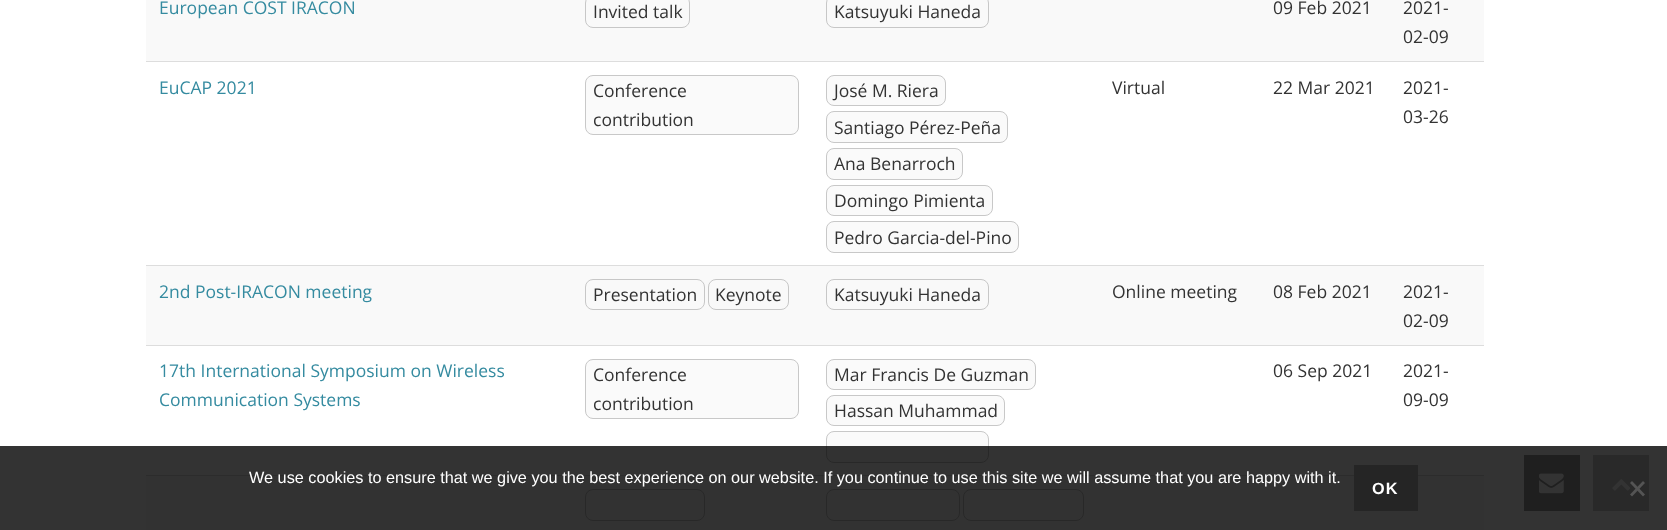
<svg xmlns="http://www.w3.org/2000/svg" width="1667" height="530">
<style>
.a{font:17.5px Open Sans;fill:#358ba0}
.b{font:17.5px Open Sans;fill:#333}
.c{font:16.25px Liberation Sans;fill:#fff}
.d{font:bold 16.25px Liberation Sans;letter-spacing:1px;fill:#fff}
</style>
<rect width="100%" height="100%" fill="#fff"/>
<path fill="#f9f9f9" d="M146 0h1338v61H146z"/>
<rect fill="none" stroke="#c7c7c7" x="585.5" y="-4.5" width="104" height="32" rx="7.5"/>
<rect fill="none" stroke="#c7c7c7" x="826.5" y="-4.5" width="162" height="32" rx="7.5"/>
<path fill="#ddd" d="M146 61h1338v1H146z"/>
<rect fill="#fafafa" stroke="#c8c8c8" x="585.5" y="75.5" width="213" height="59" rx="7.5"/>
<rect fill="#fafafa" stroke="#c8c8c8" x="826.5" y="75.5" width="119" height="30" rx="7.5"/>
<rect fill="#fafafa" stroke="#c8c8c8" x="826.5" y="111.5" width="181" height="31" rx="7.5"/>
<rect fill="#fafafa" stroke="#c8c8c8" x="826.5" y="148.5" width="136" height="31" rx="7.5"/>
<rect fill="#fafafa" stroke="#c8c8c8" x="826.5" y="185.5" width="166" height="30" rx="7.5"/>
<rect fill="#fafafa" stroke="#c8c8c8" x="826.5" y="221.5" width="192" height="31" rx="7.5"/>
<path fill="#f9f9f9" d="M146 266h1338v79H146z"/>
<path fill="#ddd" d="M146 265h1338v1H146z"/>
<rect fill="none" stroke="#c7c7c7" x="585.5" y="279.5" width="119" height="30" rx="7.5"/>
<rect fill="none" stroke="#c7c7c7" x="708.5" y="279.5" width="80" height="30" rx="7.5"/>
<rect fill="none" stroke="#c7c7c7" x="826.5" y="279.5" width="162" height="30" rx="7.5"/>
<path fill="#ddd" d="M146 345h1338v1H146z"/>
<rect fill="#fafafa" stroke="#c8c8c8" x="585.5" y="359.5" width="213" height="59" rx="7.5"/>
<rect fill="#fafafa" stroke="#c8c8c8" x="826.5" y="359.5" width="209" height="30" rx="7.5"/>
<rect fill="#fafafa" stroke="#c8c8c8" x="826.5" y="395.5" width="178" height="30" rx="7.5"/>
<rect fill="#fafafa" stroke="#c8c8c8" x="826.5" y="431.5" width="162" height="31" rx="7.5"/>
<path fill="#f9f9f9" d="M146 476h1338v54H146z"/>
<path fill="#ddd" d="M146 475h1208v1H146z"/>
<path fill="#ddd" d="M1418 475h66v1H1418z"/>
<rect fill="none" stroke="#c7c7c7" x="585.5" y="489.5" width="119" height="31" rx="7.5"/>
<rect fill="none" stroke="#c7c7c7" x="826.5" y="489.5" width="133" height="31" rx="7.5"/>
<rect fill="none" stroke="#c7c7c7" x="963.5" y="489.5" width="120" height="31" rx="7.5"/>
<path fill="#999" d="M1524 455h56v56H1524z"/>
<image href="1.png" x="1539" y="473" width="25" height="21"/>
<path fill="#ccc" d="M1593 455h56v56H1593z"/>
<image href="2.png" x="1612" y="479" width="19" height="12"/>
<path fill="#000000cc" d="M0 446h1667v84H0z"/>
<path fill="#252525" d="M1354 465h64v46H1354z"/>
<path fill="#545454" d="M1643 481l2 2l-13 13.5l-2-2z"/>
<path fill="#545454" d="M1630 483l2-2l13 13.5l-2 2z"/>
<text class="a" x="159" y="14">European COST IRACON</text>
<text class="b" x="593" y="18">Invited talk</text>
<text class="b" x="834" y="18">Katsuyuki Haneda</text>
<text class="b" x="1273" y="14">09 Feb 2021</text>
<text class="b" x="1403" y="14">2021-</text>
<text class="b" x="1403" y="43">02-09</text>
<text class="a" x="159" y="94">EuCAP 2021</text>
<text class="b" x="593" y="97">Conference</text>
<text class="b" x="593" y="126">contribution</text>
<text class="b" x="834" y="97">José M. Riera</text>
<text class="b" x="834" y="134">Santiago Pérez-Peña</text>
<text class="b" x="834" y="170">Ana Benarroch</text>
<text class="b" x="834" y="207">Domingo Pimienta</text>
<text class="b" x="834" y="244">Pedro Garcia-del-Pino</text>
<text class="b" x="1112" y="94">Virtual</text>
<text class="b" x="1273" y="94">22 Mar 2021</text>
<text class="b" x="1403" y="94">2021-</text>
<text class="b" x="1403" y="123">03-26</text>
<text class="a" x="159" y="298">2nd Post-IRACON meeting</text>
<text class="b" x="593" y="301">Presentation</text>
<text class="b" x="715" y="301">Keynote</text>
<text class="b" x="834" y="301">Katsuyuki Haneda</text>
<text class="b" x="1112" y="298">Online meeting</text>
<text class="b" x="1273" y="298">08 Feb 2021</text>
<text class="b" x="1403" y="298">2021-</text>
<text class="b" x="1403" y="327">02-09</text>
<text class="a" x="159" y="377">17th International Symposium on Wireless</text>
<text class="a" x="159" y="406">Communication Systems</text>
<text class="b" x="593" y="381">Conference</text>
<text class="b" x="593" y="410">contribution</text>
<text class="b" x="834" y="381">Mar Francis De Guzman</text>
<text class="b" x="834" y="417">Hassan Muhammad</text>
<text class="b" x="1273" y="377">06 Sep 2021</text>
<text class="b" x="1403" y="377">2021-</text>
<text class="b" x="1403" y="406">09-09</text>
<text class="c" x="249" y="483">We use cookies to ensure that we give you the best experience on our website. If you continue to use this site we will assume that you are happy with it.</text>
<text class="d" x="1372" y="494">OK</text>
</svg>
